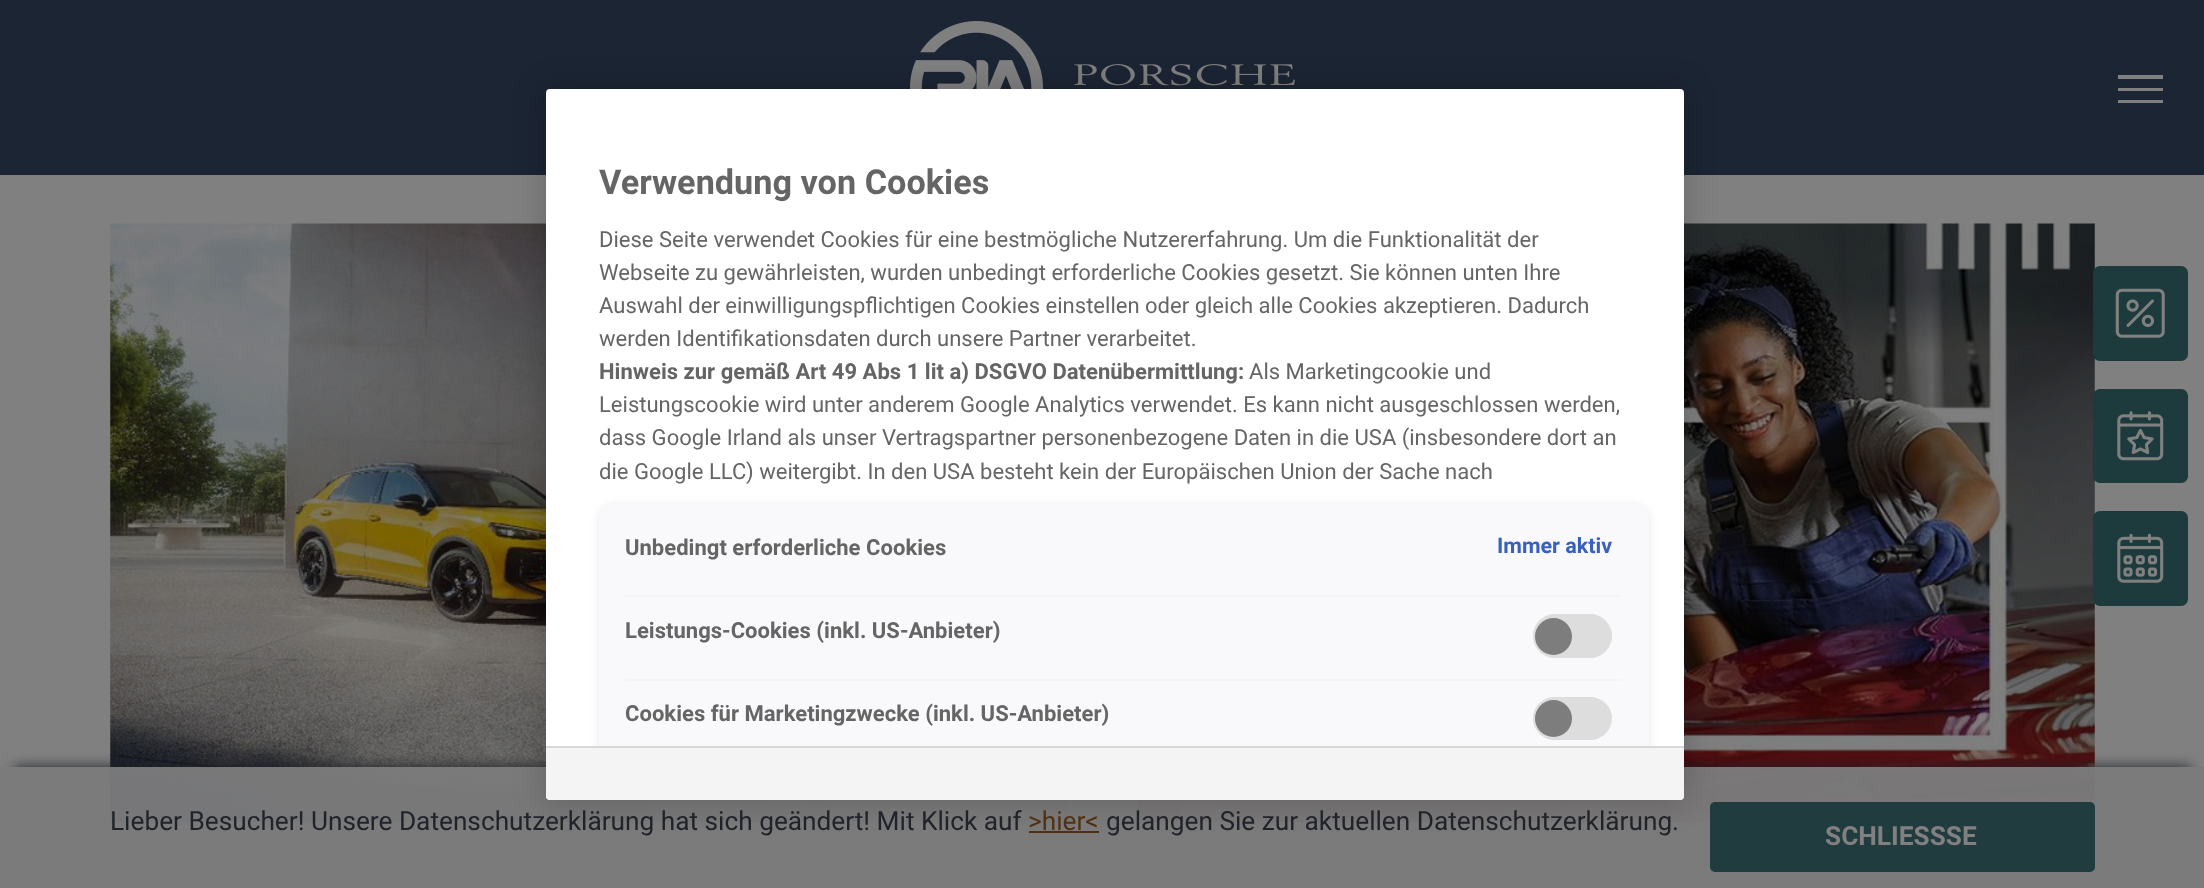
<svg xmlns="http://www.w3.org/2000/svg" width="2204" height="888">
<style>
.a{font:bold 34.25px Roboto;fill:#656565}
.b{font:22.05px Roboto;fill:#656565}
.c{font:bold 22.05px Roboto;fill:#656565}
.d{font:bold 21.5px Roboto;fill:#3860be}
.e{font:26.25px Roboto;fill:#20242a}
.f{font:26.25px Roboto;fill:#503112}
.g{font:bold 26.25px Roboto;fill:#808080}
</style>
<defs>
<clipPath id="clip1"><path d="M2 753h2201v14H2z"/></clipPath>
</defs>
<rect width="100%" height="100%" fill="#808080"/>
<path fill="#1c2534" d="M0 0h2204v175H0z"/>
<image href="1.png" x="910" y="21" width="385" height="68"/>
<path fill="#808080" fill-rule="evenodd" d="M2163 100v3h-45v-3zm0-12v3h-45v-3zm0-13v4h-45v-4z"/>
<path fill="#7b7b7c" d="M110 224h958v664H110z"/>
<image href="2.png" x="110" y="223" width="958" height="599"/>
<path fill="#7b7b7c" d="M1138 224h957v664H1138z"/>
<image href="3.png" x="1137" y="223" width="958" height="599"/>
<rect fill="#1d3a3c" x="2093" y="266" width="95" height="95" rx="7"/>
<image href="4.png" x="2115" y="288" width="50" height="50"/>
<rect fill="#1d3a3c" x="2093" y="389" width="95" height="94" rx="7"/>
<image href="5.png" x="2117" y="411" width="47" height="50"/>
<rect fill="#1d3a3c" x="2093" y="511" width="95" height="95" rx="7"/>
<image href="6.png" x="2117" y="533" width="47" height="50"/>
<g clip-path="url(#clip1)">
<path fill="#1d2127f7" filter="blur(7px)" d="M14 767h2177v94H14z"/>
</g>
<path fill="#7b7b7cf7" d="M0 767h2204v121H0z"/>
<path fill="#503112" d="M1029 831h70v2H1029z"/>
<rect fill="#1d3a3cf7" x="1710" y="802" width="385" height="70" rx="5"/>
<rect fill="#00000033" filter="blur(16px)" x="546" y="89" width="1138" height="711" rx="4"/>
<rect fill="#fff" x="546" y="89" width="1138" height="711" rx="4"/>
<rect fill="#0000001a" filter="blur(5px)" x="599" y="506" width="1050" height="268" rx="14"/>
<rect fill="#f9f9fc" x="599" y="504" width="1050" height="268" rx="14"/>
<path fill="#f4f4f4" d="M625 595h997v2H625z"/>
<path fill="#f4f4f4" d="M625 679h997v2H625z"/>
<rect fill="#f2f1f1" x="1533" y="614" width="79" height="44" rx="22"/>
<path fill="#ddd" d="M1555 614h35c12 0 22 10 22 22c0 12-10 22-22 22h-35c-12 0-22-10-22-22c0-12 10-22 22-22z"/>
<circle fill="#7d7d7d" cx="1553.5" cy="636.5" r="18.5"/>
<rect fill="#f2f1f1" x="1533" y="697" width="79" height="43" rx="21.5"/>
<path fill="#ddd" d="M1554 697h36c12 0 22 10 22 21c0 12-10 22-22 22h-36c-11 0-21-10-21-22c0-11 10-21 21-21z"/>
<circle fill="#7d7d7d" cx="1553.5" cy="718.5" r="18.5"/>
<path fill="#f4f4f4" d="M546 746h1138v50c0 2-2 4-4 4h-1130c-2 0-4-2-4-4z"/>
<path fill="#d8d8d8" d="M546 746h1138v2H546z"/>
<text class="a" x="599" y="194">Verwendung von Cookies</text>
<text class="b" x="599" y="247">Diese Seite verwendet Cookies für eine bestmögliche Nutzererfahrung. Um die Funktionalität der</text>
<text class="b" x="599" y="280">Webseite zu gewährleisten, wurden unbedingt erforderliche Cookies gesetzt. Sie können unten Ihre</text>
<text class="b" x="599" y="313">Auswahl der einwilligungspflichtigen Cookies einstellen oder gleich alle Cookies akzeptieren. Dadurch</text>
<text class="b" x="599" y="346">werden Identifikationsdaten durch unsere Partner verarbeitet.</text>
<text class="c" x="599" y="379">Hinweis zur gemäß Art 49 Abs 1 lit a) DSGVO Datenübermittlung:</text>
<text class="b" x="1249" y="379">Als Marketingcookie und</text>
<text class="b" x="599" y="412">Leistungscookie wird unter anderem Google Analytics verwendet. Es kann nicht ausgeschlossen werden,</text>
<text class="b" x="599" y="445">dass Google Irland als unser Vertragspartner personenbezogene Daten in die USA (insbesondere dort an</text>
<text class="b" x="599" y="479">die Google LLC) weitergibt. In den USA besteht kein der Europäischen Union der Sache nach</text>
<text class="c" x="625" y="555">Unbedingt erforderliche Cookies</text>
<text class="d" x="1497" y="553">Immer aktiv</text>
<text class="c" x="625" y="638">Leistungs-Cookies (inkl. US-Anbieter)</text>
<text class="c" x="625" y="721">Cookies für Marketingzwecke (inkl. US-Anbieter)</text>
<text class="e" x="110" y="830">Lieber Besucher! Unsere Datenschutzerklärung hat sich geändert! Mit Klick auf</text>
<text class="f" x="1028" y="830">&gt;hier&lt;</text>
<text class="e" x="1106" y="830">gelangen Sie zur aktuellen Datenschutzerklärung.</text>
<text class="g" x="1825" y="845">SCHLIESSSE</text>
</svg>
